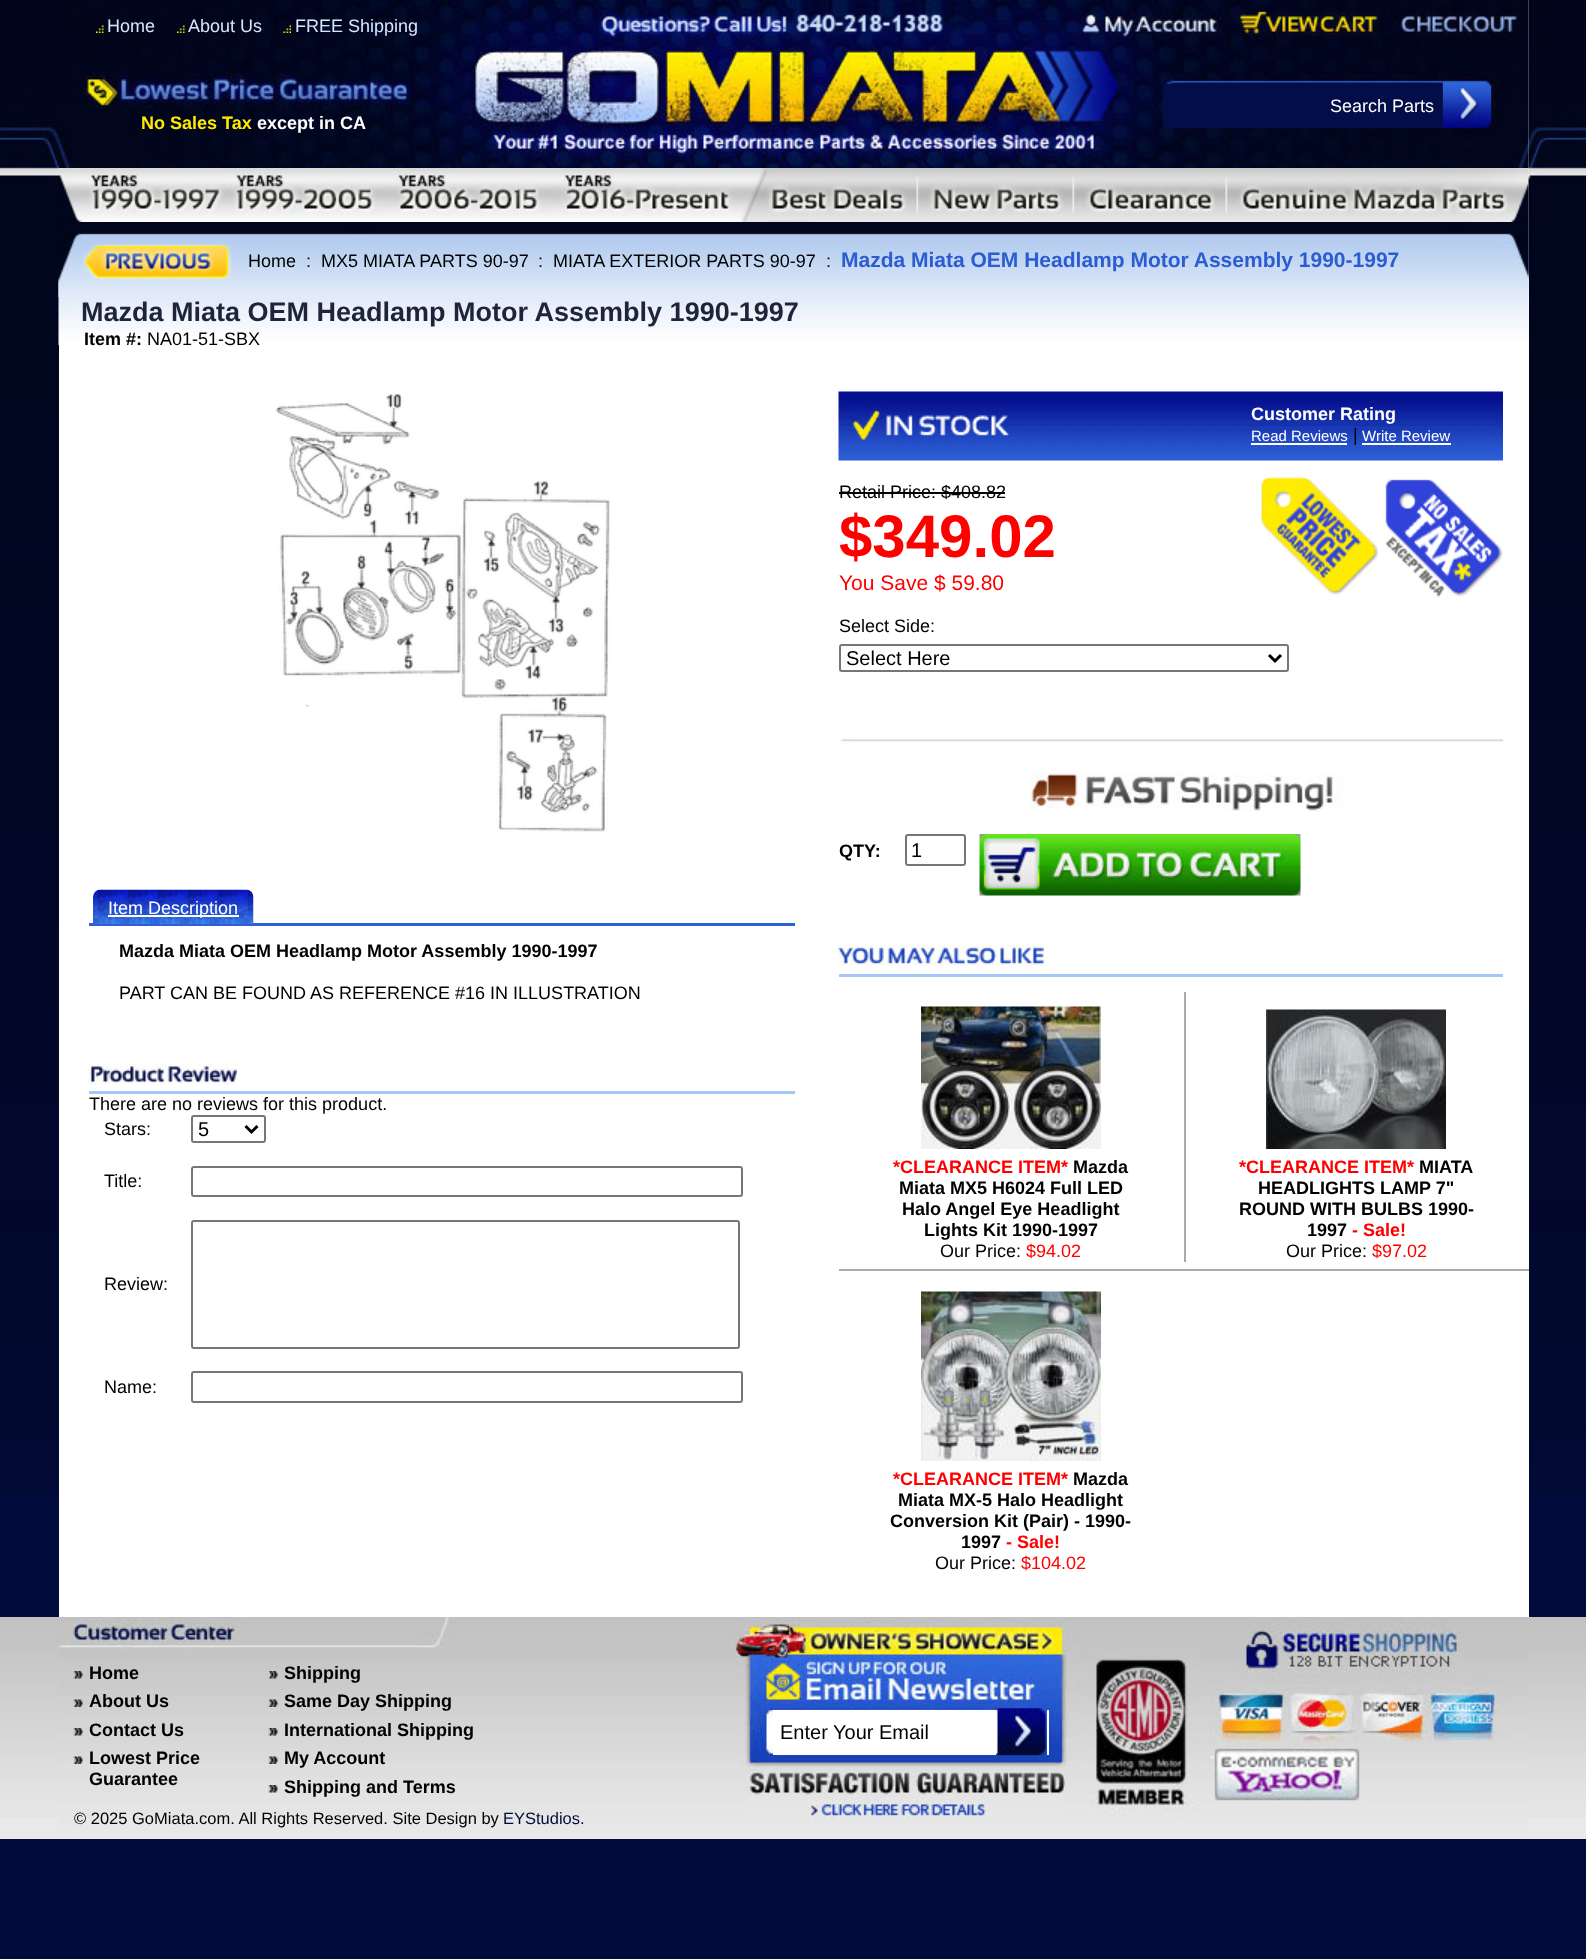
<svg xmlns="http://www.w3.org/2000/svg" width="1586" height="1959">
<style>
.a{font:18px Liberation Sans;fill:#d7e6fd}
.b{font:18px Liberation Sans;fill:#fff}
.c{font:bold 18px Liberation Sans;fill:#ffea00}
.d{font:bold 18px Liberation Sans;fill:#fff}
.e{font:18px Liberation Sans;fill:#000}
.f{font:bold 21px Liberation Sans;fill:#2b5cd2}
.g{font:bold 27px Liberation Sans;fill:#1e243a}
.h{font:bold 18px Liberation Sans;fill:#000}
.i{font:20px Liberation Sans;fill:#000}
.j{font:15px Liberation Sans;fill:#fff}
.k{font:bold 60px Liberation Sans;fill:#f00}
.l{font:21px Liberation Sans;fill:#f00}
.m{font:bold 18px Liberation Sans;fill:#f00}
.n{font:18px Liberation Sans;fill:#f00}
.o{font:16.5px Liberation Sans;fill:#000}
.p{font:16.5px Liberation Sans;fill:#000a38}
</style>
<rect width="100%" height="100%" fill="#010b3c"/>
<image href="1.png" x="0" y="0" width="1586" height="1495"/>
<path fill="#fff" d="M59 0h1470v1617H59z"/>
<image href="2.png" x="58" y="0" width="1471" height="168"/>
<image href="9.png" x="58" y="168" width="1471" height="54"/>
<image href="3.png" x="1528" y="0" width="31" height="222"/>
<image href="4.png" x="96" y="25" width="8" height="8"/>
<image href="5.png" x="177" y="25" width="8" height="8"/>
<image href="6.png" x="283" y="25" width="8" height="8"/>
<path fill="#030d48" d="M1163 84h279v44H1163z"/>
<image href="7.png" x="1443" y="79" width="48" height="49"/>
<image href="8.png" x="28" y="120" width="31" height="58"/>
<image href="10.png" x="58" y="222" width="1471" height="123"/>
<image href="11.png" x="58" y="222" width="1471" height="75"/>
<image href="12.png" x="82" y="244" width="150" height="35"/>
<image href="13.png" x="275" y="394" width="335" height="438"/>
<path fill="#2d60d6" d="M89 923h706v3H89z"/>
<image href="14.png" x="93" y="889" width="161" height="35"/>
<path fill="#fff" d="M108 915h131v2H108z"/>
<image href="15.png" x="88" y="1063" width="149" height="22"/>
<path fill="#a5c7f7" d="M89 1091h706v3H89z"/>
<rect fill="none" stroke="#767676" stroke-width="2" x="192" y="1116" width="73" height="26" rx="2"/>
<path fill="none" stroke="#000" stroke-width="3" d="M245.5 1126l6 6l6-6"/>
<rect fill="none" stroke="#767676" stroke-width="2" x="192" y="1167" width="550" height="29" rx="2"/>
<rect fill="none" stroke="#767676" stroke-width="2" x="192" y="1221" width="547" height="127" rx="2"/>
<rect fill="none" stroke="#767676" stroke-width="2" x="192" y="1372" width="550" height="30" rx="2"/>
<image href="16.png" x="838" y="391" width="665" height="70"/>
<path fill="#fff" d="M1251 443h96v2H1251z"/>
<path fill="#fff" d="M1362 443h89v2H1362z"/>
<path fill="#000" d="M839 492h166v2H839z"/>
<image href="17.png" x="1261" y="476" width="242" height="122"/>
<rect fill="none" stroke="#767676" stroke-width="2" x="840" y="645" width="448" height="26" rx="2"/>
<path fill="none" stroke="#000" stroke-width="3" d="M1269 655l6 6l6-6"/>
<image href="18.png" x="840" y="738" width="663" height="73"/>
<rect fill="none" stroke="#767676" stroke-width="2" x="906" y="835" width="59" height="30" rx="2"/>
<image href="19.png" x="979" y="834" width="322" height="62"/>
<image href="20.png" x="838" y="945" width="206" height="21"/>
<path fill="#a5c7f7" d="M839 974h664v3H839z"/>
<image href="21.png" x="921" y="1006" width="180" height="143"/>
<path fill="#a5acb2" d="M1184 992h2v270H1184z"/>
<image href="22.png" x="1266" y="1009" width="180" height="140"/>
<path fill="#a5acb2" d="M839 1269h690v2H839z"/>
<image href="23.png" x="921" y="1291" width="180" height="170"/>
<path fill="#eae8eb" d="M0 1818h1586v21H0z"/>
<image href="24.png" x="0" y="1617" width="1586" height="201"/>
<image href="25.png" x="58" y="1617" width="1470" height="215"/>
<image href="26.png" x="73" y="1671" width="10" height="8"/>
<image href="27.png" x="73" y="1699" width="10" height="8"/>
<image href="28.png" x="73" y="1728" width="10" height="8"/>
<image href="29.png" x="73" y="1756" width="10" height="8"/>
<image href="26.png" x="268" y="1671" width="10" height="8"/>
<image href="27.png" x="268" y="1699" width="10" height="8"/>
<image href="28.png" x="268" y="1728" width="10" height="8"/>
<image href="29.png" x="268" y="1756" width="10" height="8"/>
<image href="30.png" x="268" y="1785" width="10" height="8"/>
<path fill="#fff" d="M773 1710h276v45H773z"/>
<image href="31.png" x="996" y="1708" width="51" height="47"/>
<image href="32.png" x="748" y="1771" width="317" height="47"/>
<text class="a" x="107" y="32">Home</text>
<text class="a" x="188" y="32">About Us</text>
<text class="a" x="295" y="32">FREE Shipping</text>
<text class="b" x="1330" y="112">Search Parts</text>
<text class="c" x="141" y="129">No Sales Tax</text>
<text class="d" x="257" y="129">except in CA</text>
<text class="e" x="248" y="267">Home</text>
<text class="e" x="306" y="267">:</text>
<text class="e" x="321" y="267">MX5 MIATA PARTS 90-97</text>
<text class="e" x="538" y="267">:</text>
<text class="e" x="553" y="267">MIATA EXTERIOR PARTS 90-97</text>
<text class="e" x="826" y="267">:</text>
<text class="f" x="841" y="267">Mazda Miata OEM Headlamp Motor Assembly 1990-1997</text>
<text class="g" x="81" y="321">Mazda Miata OEM Headlamp Motor Assembly 1990-1997</text>
<text class="h" x="84" y="345">Item #:</text>
<text class="e" x="147" y="345">NA01-51-SBX</text>
<text class="b" x="108" y="914">Item Description</text>
<text class="h" x="119" y="957">Mazda Miata OEM Headlamp Motor Assembly 1990-1997</text>
<text class="e" x="119" y="999">PART CAN BE FOUND AS REFERENCE #16 IN ILLUSTRATION</text>
<text class="e" x="89" y="1110">There are no reviews for this product.</text>
<text class="e" x="104" y="1135">Stars:</text>
<text class="i" x="198" y="1136">5</text>
<text class="e" x="104" y="1187">Title:</text>
<text class="e" x="104" y="1290">Review:</text>
<text class="e" x="104" y="1393">Name:</text>
<text class="d" x="1251" y="420">Customer Rating</text>
<text class="j" x="1251" y="441">Read Reviews</text>
<text class="e" x="1353" y="441">|</text>
<text class="j" x="1362" y="441">Write Review</text>
<text class="e" x="839" y="498">Retail Price: $408.82</text>
<text class="k" x="839" y="557">$349.02</text>
<text class="l" x="839" y="590">You Save $ 59.80</text>
<text class="e" x="839" y="632">Select Side:</text>
<text class="i" x="846" y="665">Select Here</text>
<text class="h" x="839" y="857">QTY:</text>
<text class="i" x="911" y="857">1</text>
<text class="m" x="893" y="1173">*CLEARANCE ITEM*</text>
<text class="h" x="1073" y="1173">Mazda</text>
<text class="h" x="899" y="1194">Miata MX5 H6024 Full LED</text>
<text class="h" x="902" y="1215">Halo Angel Eye Headlight</text>
<text class="h" x="924" y="1236">Lights Kit 1990-1997</text>
<text class="m" x="1239" y="1173">*CLEARANCE ITEM*</text>
<text class="h" x="1419" y="1173">MIATA</text>
<text class="h" x="1258" y="1194">HEADLIGHTS LAMP 7"</text>
<text class="h" x="1239" y="1215">ROUND WITH BULBS 1990-</text>
<text class="h" x="1307" y="1236">1997</text>
<text class="m" x="1352" y="1236">- Sale!</text>
<text class="e" x="940" y="1257">Our Price:</text>
<text class="n" x="1026" y="1257">$94.02</text>
<text class="e" x="1286" y="1257">Our Price:</text>
<text class="n" x="1372" y="1257">$97.02</text>
<text class="m" x="893" y="1485">*CLEARANCE ITEM*</text>
<text class="h" x="1073" y="1485">Mazda</text>
<text class="h" x="898" y="1506">Miata MX-5 Halo Headlight</text>
<text class="h" x="890" y="1527">Conversion Kit (Pair) - 1990-</text>
<text class="h" x="961" y="1548">1997</text>
<text class="m" x="1006" y="1548">- Sale!</text>
<text class="e" x="935" y="1569">Our Price:</text>
<text class="n" x="1021" y="1569">$104.02</text>
<text class="h" x="89" y="1679">Home</text>
<text class="h" x="89" y="1707">About Us</text>
<text class="h" x="89" y="1736">Contact Us</text>
<text class="h" x="89" y="1764">Lowest Price</text>
<text class="h" x="89" y="1785">Guarantee</text>
<text class="h" x="284" y="1679">Shipping</text>
<text class="h" x="284" y="1707">Same Day Shipping</text>
<text class="h" x="284" y="1736">International Shipping</text>
<text class="h" x="284" y="1764">My Account</text>
<text class="h" x="284" y="1793">Shipping and Terms</text>
<text class="i" x="780" y="1739">Enter Your Email</text>
<text class="o" x="74" y="1824">© 2025 GoMiata.com. All Rights Reserved. Site Design by</text>
<text class="p" x="503" y="1824">EYStudios</text>
<text class="o" x="580" y="1824">.</text>
</svg>
